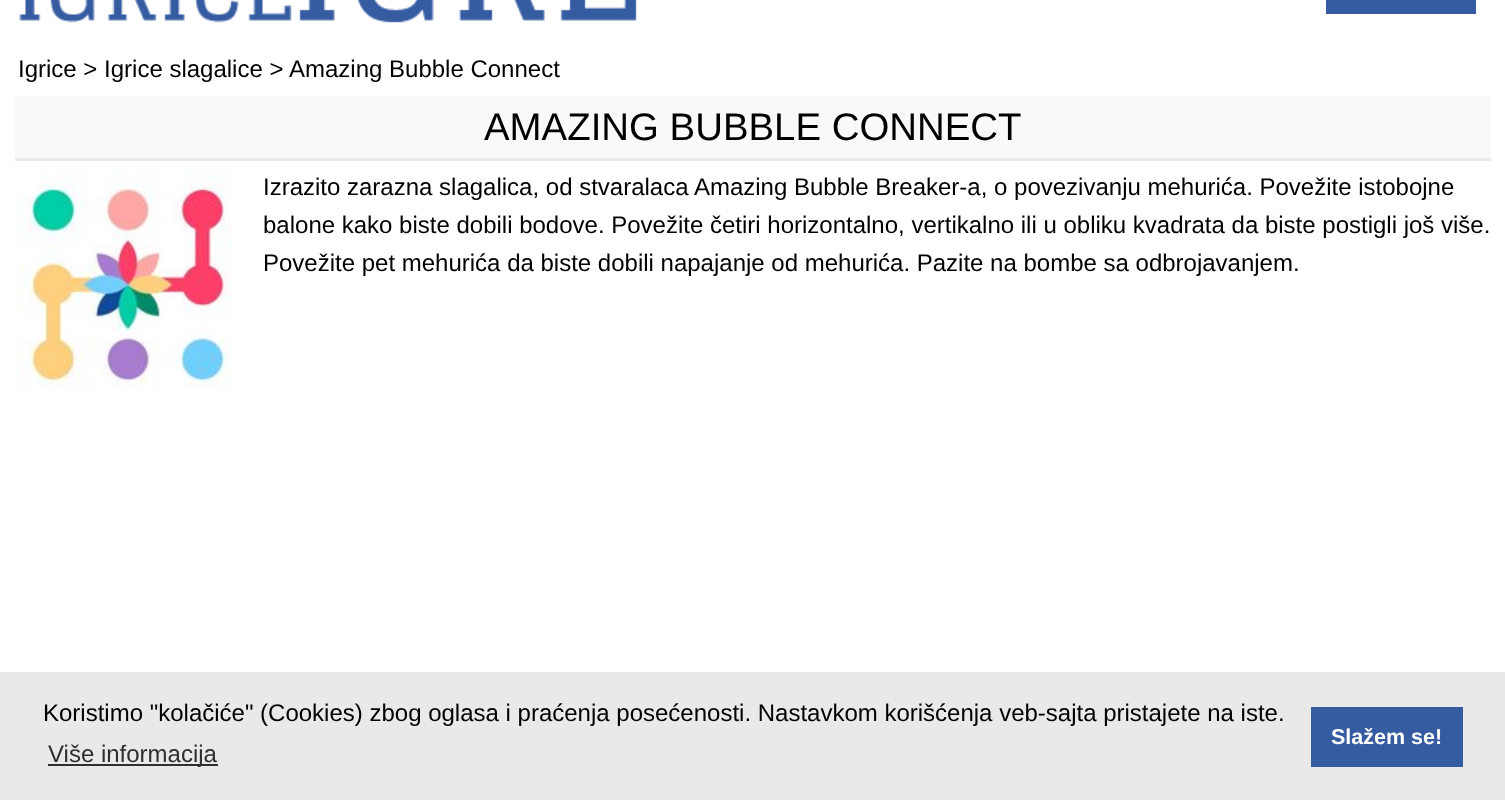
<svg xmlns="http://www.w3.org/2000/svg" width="1505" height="800">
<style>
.a{font:24px Liberation Sans;fill:#000}
.b{font:38.4px Liberation Sans;fill:#000}
.c{font:24px Liberation Sans;fill:#2f2f2f}
.d{font:bold 21.5px Liberation Sans;fill:#fff}
</style>
<rect width="100%" height="100%" fill="#fff"/>
<image href="1.png" x="19" y="0" width="618" height="23"/>
<path fill="#355ba0" d="M1326 0h150v14H1326z"/>
<path fill="#f9f9f9" d="M15 96h1476v62H15z"/>
<path fill="#eaeaea" d="M15 158h1476v3H15z"/>
<image href="2.png" x="15" y="172" width="217" height="217"/>
<path fill="#e9e9e9" d="M0 672h1505v128H0z"/>
<path fill="#2f2f2f" d="M48 764h170v2H48z"/>
<path fill="#355ba0" d="M1311 707h152v60H1311z"/>
<text class="a" x="18" y="77">Igrice &gt; Igrice slagalice &gt;</text>
<text class="a" x="289" y="77">Amazing Bubble Connect</text>
<text class="b" x="484" y="140">AMAZING BUBBLE CONNECT</text>
<text class="a" x="263" y="195">Izrazito zarazna slagalica, od stvaralaca Amazing Bubble Breaker-a, o povezivanju mehurića. Povežite istobojne</text>
<text class="a" x="263" y="233">balone kako biste dobili bodove. Povežite četiri horizontalno, vertikalno ili u obliku kvadrata da biste postigli još više.</text>
<text class="a" x="263" y="271">Povežite pet mehurića da biste dobili napajanje od mehurića. Pazite na bombe sa odbrojavanjem.</text>
<text class="a" x="43" y="721">Koristimo "kolačiće" (Cookies) zbog oglasa i praćenja posećenosti. Nastavkom korišćenja veb-sajta pristajete na iste.</text>
<text class="c" x="48" y="762">Više informacija</text>
<text class="d" x="1331" y="744">Slažem se!</text>
</svg>
